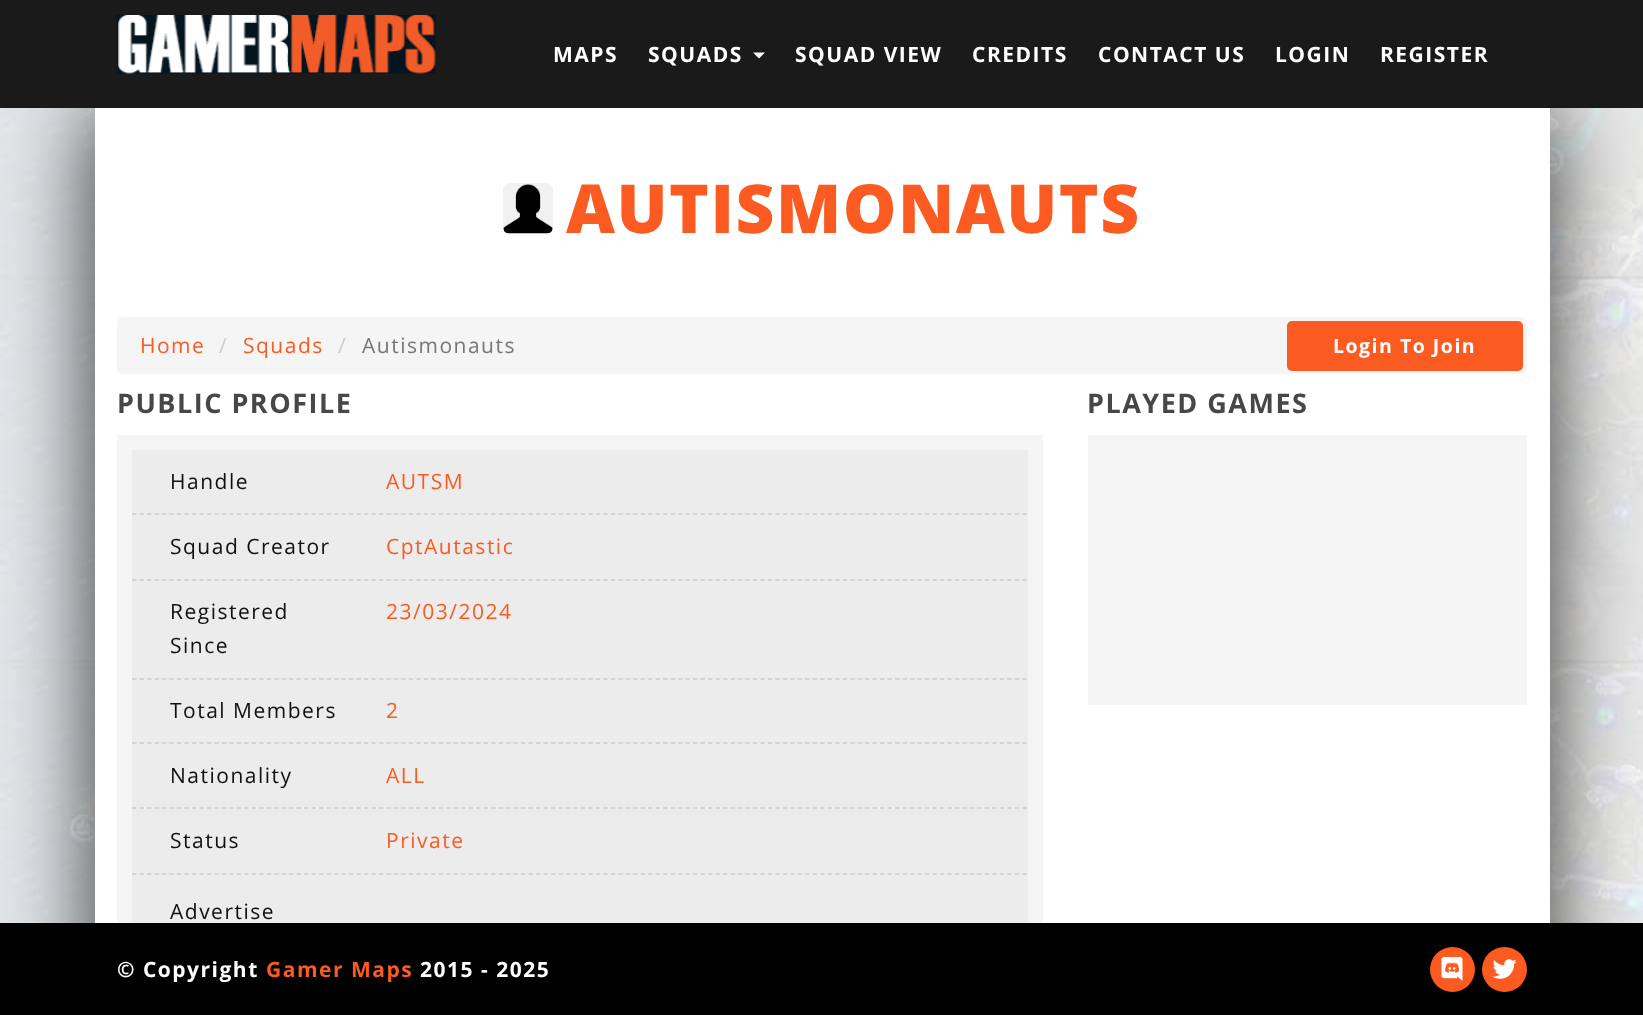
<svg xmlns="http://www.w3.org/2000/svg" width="1643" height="1015">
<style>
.a{font:bold 21px Open Sans;letter-spacing:1.5px;fill:#fff}
.b{font:800 67.5px Open Sans;letter-spacing:1.5px;fill:#fb5b21}
.c{font:21px Open Sans;letter-spacing:1.5px;fill:#fb5b21}
.d{font:21px Open Sans;letter-spacing:1.5px;fill:#ccc}
.e{font:21px Open Sans;letter-spacing:1.5px;fill:#777}
.f{font:bold 19.5px Open Sans;letter-spacing:1.5px;fill:#fff}
.g{font:bold 27px Open Sans;letter-spacing:1.5px;fill:#474747}
.h{font:21px Open Sans;letter-spacing:1.5px;fill:#111}
.i{font:bold 21px Open Sans;letter-spacing:1.5px;fill:#fb5b21}
</style>
<rect width="100%" height="100%" fill="#fff"/>
<image href="1.png" x="0" y="922" width="1643" height="1"/>
<image href="3.png" x="0" y="108" width="1643" height="815"/>
<path fill="#000000cc" filter="blur(45px)" d="M95 107h1455v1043H95z"/>
<path fill="#1a1a1a" d="M0 0h1643v108H0z"/>
<image href="2.png" x="117" y="15" width="319" height="59"/>
<path fill="#fff" d="M753 52.5h12l-6 6z"/>
<path fill="#fff" d="M95 108h1455v815H95z"/>
<image href="4.png" x="503" y="183" width="50" height="51"/>
<rect fill="#f5f5f5" x="117" y="317" width="1410" height="57" rx="6"/>
<rect fill="#fb5b21" stroke="#fb5b21" stroke-width="2" x="1288" y="322" width="234" height="48" rx="4"/>
<path fill="#f5f5f5" d="M117 435h926v488H117z"/>
<path fill="#ececec" d="M132 450h896v473H132z"/>
<path fill="none" stroke="#ccc" stroke-width="1.5" stroke-dasharray="4.5 2.98" d="M132 514h895.5"/>
<path fill="none" stroke="#ccc" stroke-width="1.5" stroke-dasharray="4.5 2.98" d="M132 580h895.5"/>
<path fill="none" stroke="#ccc" stroke-width="1.5" stroke-dasharray="4.5 2.98" d="M132 679h895.5"/>
<path fill="none" stroke="#ccc" stroke-width="1.5" stroke-dasharray="4.5 2.98" d="M132 743h895.5"/>
<path fill="none" stroke="#ccc" stroke-width="1.5" stroke-dasharray="4.5 2.98" d="M132 808h895.5"/>
<path fill="none" stroke="#ccc" stroke-width="1.5" stroke-dasharray="4.5 2.98" d="M132 874h895.5"/>
<path fill="#f5f5f5" d="M1088 435h439v270H1088z"/>
<path fill="#000" d="M0 923h1643v92H0z"/>
<circle fill="#fb5b21" cx="1452.5" cy="969.5" r="22.5"/>
<image href="5.png" x="1441" y="957" width="22" height="24"/>
<circle fill="#fb5b21" cx="1504.5" cy="969.5" r="22.5"/>
<image href="6.png" x="1492" y="959" width="25" height="20"/>
<text class="a" x="553" y="62">MAPS</text>
<text class="a" x="648" y="62">SQUADS</text>
<text class="a" x="795" y="62">SQUAD VIEW</text>
<text class="a" x="972" y="62">CREDITS</text>
<text class="a" x="1098" y="62">CONTACT US</text>
<text class="a" x="1275" y="62">LOGIN</text>
<text class="a" x="1380" y="62">REGISTER</text>
<text class="b" x="566" y="233">AUTISMONAUTS</text>
<text class="c" x="140" y="353">Home</text>
<text class="d" x="219" y="353">/</text>
<text class="c" x="243" y="353">Squads</text>
<text class="d" x="338" y="353">/</text>
<text class="e" x="362" y="353">Autismonauts</text>
<text class="f" x="1333" y="353">Login To Join</text>
<text class="g" x="117" y="413">PUBLIC PROFILE</text>
<text class="h" x="170" y="489">Handle</text>
<text class="c" x="386" y="489">AUTSM</text>
<text class="h" x="170" y="554">Squad Creator</text>
<text class="c" x="386" y="554">CptAutastic</text>
<text class="h" x="170" y="619">Registered</text>
<text class="h" x="170" y="653">Since</text>
<text class="c" x="386" y="619">23/03/2024</text>
<text class="h" x="170" y="718">Total Members</text>
<text class="c" x="386" y="718">2</text>
<text class="h" x="170" y="783">Nationality</text>
<text class="c" x="386" y="783">ALL</text>
<text class="h" x="170" y="848">Status</text>
<text class="c" x="386" y="848">Private</text>
<text class="h" x="170" y="919">Advertise</text>
<text class="g" x="1087" y="413">PLAYED GAMES</text>
<text class="a" x="117" y="977">© Copyright</text>
<text class="i" x="266" y="977">Gamer Maps</text>
<text class="a" x="420" y="977">2015 - 2025</text>
</svg>
